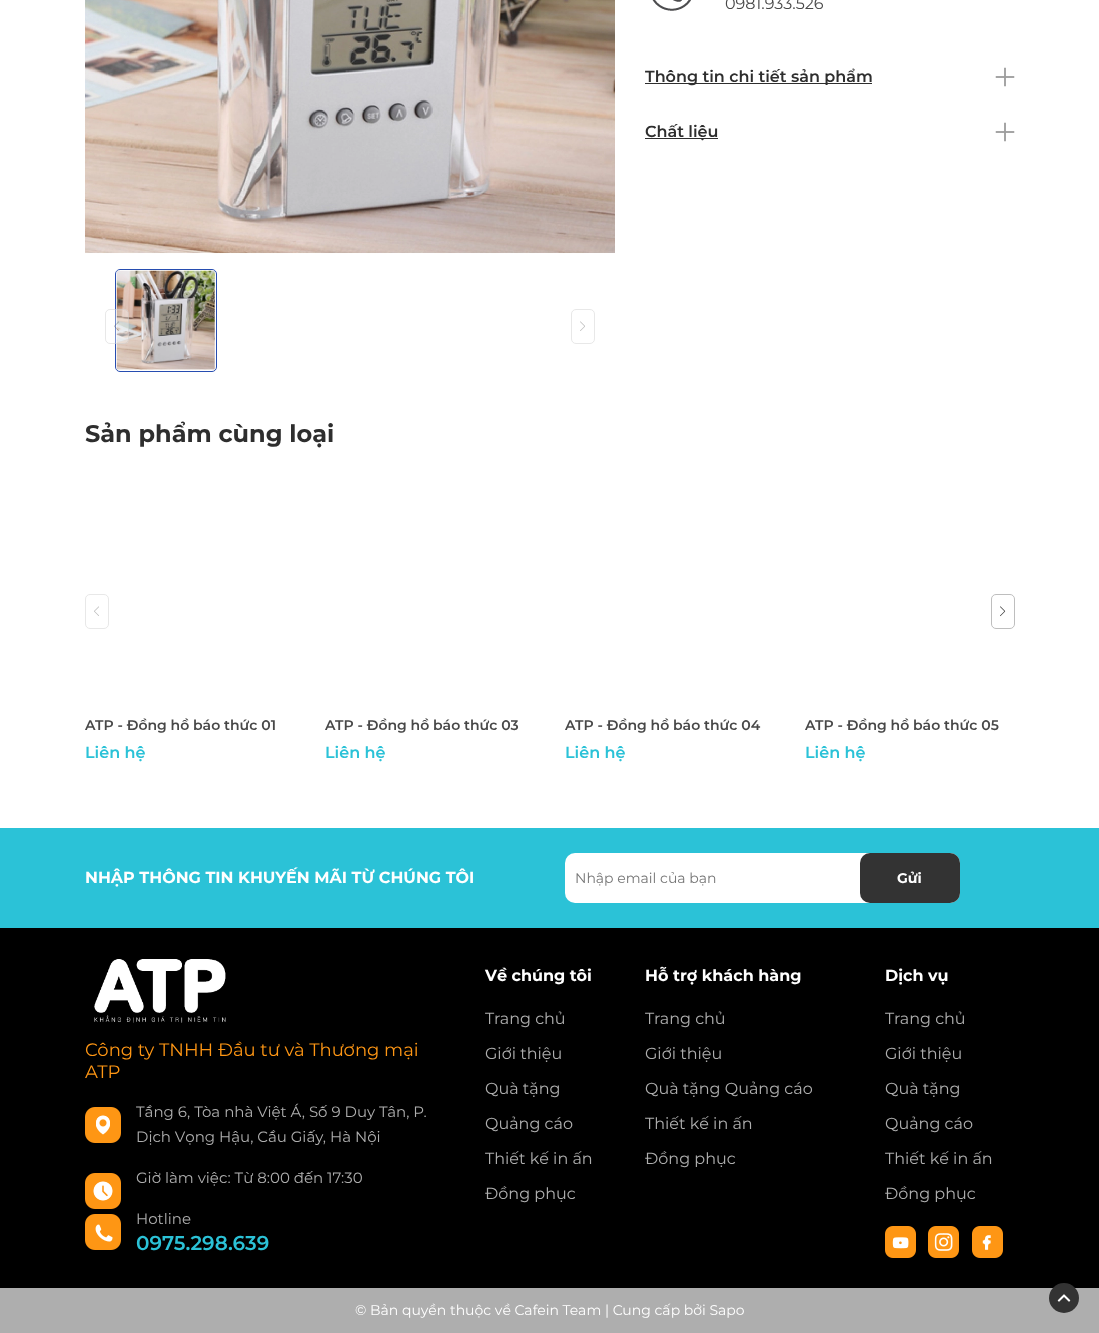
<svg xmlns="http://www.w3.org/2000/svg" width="1099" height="1333">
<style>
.a{font:16px Montserrat;fill:#484848}
.b{font:600 16px Montserrat;fill:#2e2e2e}
.c{font:bold 24px Montserrat;fill:#2e2e2e}
.d{font:600 14px Montserrat;fill:#484848}
.e{font:600 16px Montserrat;fill:#2bc2d7}
.f{font:bold 16px Montserrat;fill:#fff}
.g{font:14px Montserrat;fill:#757575}
.h{font:bold 14px Montserrat;fill:#fff}
.i{font:18px Montserrat;fill:#fe9614}
.j{font:15px Montserrat;fill:#aeaeae}
.k{font:600 20px Montserrat;fill:#2bc2d7}
.l{font:16px Montserrat;fill:#aeaeae}
.m{font:14px Montserrat;fill:#fff}
</style>
<rect width="100%" height="100%" fill="#fff"/>
<image href="1.png" x="85" y="0" width="530" height="254"/>
<rect fill="none" stroke="#274db1" x="115.5" y="269.5" width="101" height="102" rx="4.5"/>
<image href="2.png" x="116" y="270" width="99" height="100"/>
<rect fill="#ffffff59" x="105" y="309" width="24" height="35" rx="5"/>
<rect fill="none" stroke="#bebebe59" x="105.5" y="309.5" width="23" height="34" rx="4.5"/>
<image href="3.png" x="114" y="321" width="5" height="10"/>
<rect fill="none" stroke="#e8e8e8" x="571.5" y="309.5" width="23" height="34" rx="4.5"/>
<image href="4.png" x="580" y="321" width="5" height="10"/>
<image href="5.png" x="652" y="0" width="39" height="11"/>
<path fill="#2e2e2e" d="M645 83h227v1H645z"/>
<image href="6.png" x="995" y="67" width="20" height="20"/>
<path fill="#2e2e2e" d="M645 138h73v1H645z"/>
<image href="6.png" x="995" y="122" width="20" height="20"/>
<rect fill="none" stroke="#e8e8e8" x="85.5" y="594.5" width="23" height="34" rx="4.5"/>
<image href="7.png" x="94" y="606" width="5" height="10"/>
<rect fill="none" stroke="#bebebe" x="991.5" y="594.5" width="23" height="34" rx="4.5"/>
<image href="8.png" x="1000" y="606" width="6" height="11"/>
<path fill="#2bc2d7" d="M0 828h1099v100H0z"/>
<rect fill="#fff" x="565" y="853" width="395" height="50" rx="10"/>
<rect fill="#333" x="860" y="853" width="100" height="50" rx="10"/>
<path fill="#000" d="M0 928h1099v360H0z"/>
<image href="9.png" x="94" y="959" width="132" height="64"/>
<image href="10.png" x="85" y="1107" width="36" height="36"/>
<image href="11.png" x="85" y="1173" width="36" height="36"/>
<image href="12.png" x="85" y="1214" width="36" height="36"/>
<image href="13.png" x="885" y="1226" width="31" height="32"/>
<image href="14.png" x="928" y="1226" width="31" height="32"/>
<image href="15.png" x="972" y="1226" width="31" height="32"/>
<path fill="#aeaeae" d="M0 1288h1099v45H0z"/>
<circle fill="#333" cx="1064" cy="1298" r="15"/>
<image href="16.png" x="1057" y="1294" width="14" height="8"/>
<text class="a" x="725" y="9">0981.933.526</text>
<text class="b" x="645" y="82">Thông tin chi tiết sản phẩm</text>
<text class="b" x="645" y="137">Chất liệu</text>
<text class="c" x="85" y="442">Sản phẩm cùng loại</text>
<text class="d" x="85" y="730">ATP - Đồng hồ báo thức 01</text>
<text class="e" x="85" y="758">Liên hệ</text>
<text class="d" x="325" y="730">ATP - Đồng hồ báo thức 03</text>
<text class="e" x="325" y="758">Liên hệ</text>
<text class="d" x="565" y="730">ATP - Đồng hồ báo thức 04</text>
<text class="e" x="565" y="758">Liên hệ</text>
<text class="d" x="805" y="730">ATP - Đồng hồ báo thức 05</text>
<text class="e" x="805" y="758">Liên hệ</text>
<text class="f" x="85" y="883">NHẬP THÔNG TIN KHUYẾN MÃI TỪ CHÚNG TÔI</text>
<text class="g" x="575" y="883">Nhập email của bạn</text>
<text class="h" x="897" y="883">Gửi</text>
<text class="i" x="85" y="1056">Công ty TNHH Đầu tư và Thương mại</text>
<text class="i" x="85" y="1078">ATP</text>
<text class="j" x="136" y="1117">Tầng 6, Tòa nhà Việt Á, Số 9 Duy Tân, P.</text>
<text class="j" x="136" y="1142">Dịch Vọng Hậu, Cầu Giấy, Hà Nội</text>
<text class="j" x="136" y="1183">Giờ làm việc: Từ 8:00 đến 17:30</text>
<text class="j" x="136" y="1224">Hotline</text>
<text class="k" x="136" y="1250">0975.298.639</text>
<text class="f" x="485" y="981">Về chúng tôi</text>
<text class="l" x="485" y="1024">Trang chủ</text>
<text class="l" x="485" y="1059">Giới thiệu</text>
<text class="l" x="485" y="1094">Quà tặng</text>
<text class="l" x="485" y="1129">Quảng cáo</text>
<text class="l" x="485" y="1164">Thiết kế in ấn</text>
<text class="l" x="485" y="1199">Đồng phục</text>
<text class="f" x="645" y="981">Hỗ trợ khách hàng</text>
<text class="l" x="645" y="1024">Trang chủ</text>
<text class="l" x="645" y="1059">Giới thiệu</text>
<text class="l" x="645" y="1094">Quà tặng Quảng cáo</text>
<text class="l" x="645" y="1129">Thiết kế in ấn</text>
<text class="l" x="645" y="1164">Đồng phục</text>
<text class="f" x="885" y="981">Dịch vụ</text>
<text class="l" x="885" y="1024">Trang chủ</text>
<text class="l" x="885" y="1059">Giới thiệu</text>
<text class="l" x="885" y="1094">Quà tặng</text>
<text class="l" x="885" y="1129">Quảng cáo</text>
<text class="l" x="885" y="1164">Thiết kế in ấn</text>
<text class="l" x="885" y="1199">Đồng phục</text>
<text class="m" x="355" y="1315">© Bản quyền thuộc về Cafein Team | Cung cấp bởi Sapo</text>
</svg>
